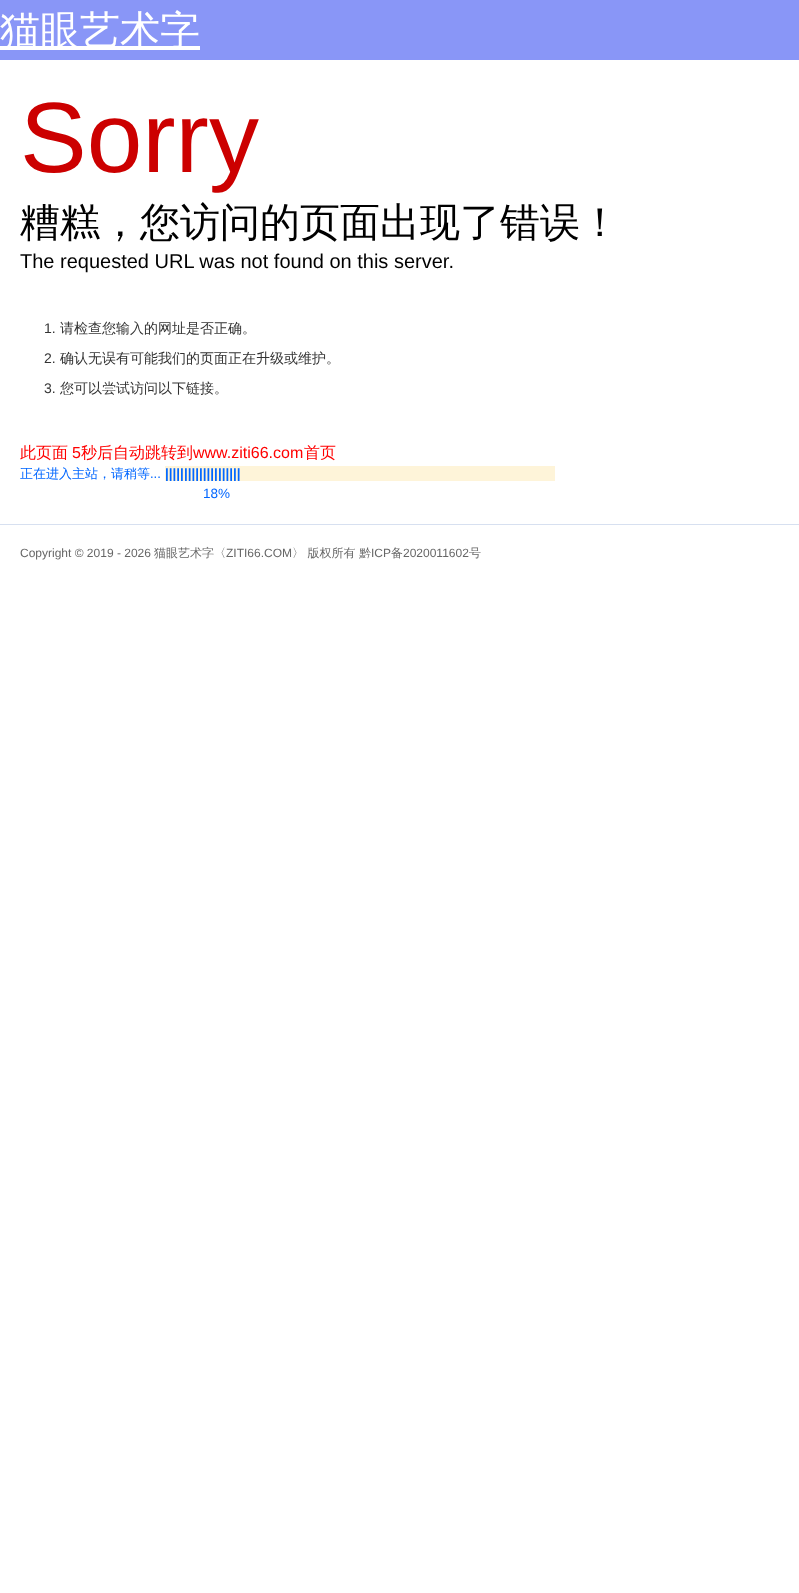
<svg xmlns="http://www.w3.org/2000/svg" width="799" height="1593">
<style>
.a{font:500 40px WenQuanYi Zen Hei;fill:#fff}
.b{font:100px Liberation Sans;fill:#c00}
.c{font:500 40px WenQuanYi Zen Hei;fill:#000}
.d{font:20px Liberation Sans;fill:#000}
.e{font:14px Liberation Sans;fill:#333}
.f{font:500 14px WenQuanYi Zen Hei;fill:#333}
.g{font:500 16px WenQuanYi Zen Hei;fill:#f00}
.h{font:16px Liberation Sans;fill:#f00}
.i{font:500 13px WenQuanYi Zen Hei;fill:#06f}
.j{font:13px Liberation Sans;fill:#06f}
.k{font:bold 13.5px Liberation Sans;fill:#06f}
.l{font:13.5px Liberation Sans;fill:#06f}
.m{font:12px Liberation Sans;fill:#666}
.n{font:500 12px WenQuanYi Zen Hei;fill:#666}
</style>
<rect width="100%" height="100%" fill="#fff"/>
<path fill="#8996f7" d="M0 0h799v60H0z"/>
<path fill="#fff" d="M0 46h200v4H0z"/>
<path fill="#d7e0f0" d="M0 524h799v1H0z"/>
<path fill="#fef4d9" d="M165 466h390v15H165z"/>
<text class="a" x="0" y="44">猫眼艺术字</text>
<text class="b" x="20" y="172">Sorry</text>
<text class="c" x="20" y="236">糟糕，您访问的页面出现了错误！</text>
<text class="d" x="20" y="268">The requested URL was not found on this server.</text>
<text class="e" x="44" y="333">1.</text>
<text class="f" x="60" y="333">请检查您输入的网址是否正确。</text>
<text class="e" x="44" y="363">2.</text>
<text class="f" x="60" y="363">确认无误有可能我们的页面正在升级或维护。</text>
<text class="e" x="44" y="393">3.</text>
<text class="f" x="60" y="393">您可以尝试访问以下链接。</text>
<text class="g" x="20" y="458">此页面</text>
<text class="h" x="72" y="458">5</text>
<text class="g" x="81" y="458">秒后自动跳转到</text>
<text class="h" x="193" y="458">www.ziti66.com</text>
<text class="g" x="304" y="458">首页</text>
<text class="i" x="20" y="478">正在进入主站，请稍等</text>
<text class="j" x="150" y="478">...</text>
<text class="k" x="165" y="478">||||||||||||||||||||</text>
<text class="l" x="203" y="498">18%</text>
<text class="m" x="20" y="557">Copyright © 2019 - 2026</text>
<text class="n" x="154" y="557">猫眼艺术字〈</text>
<text class="m" x="226" y="557">ZITI66.COM</text>
<text class="n" x="292" y="557">〉 版权所有 黔</text>
<text class="m" x="371" y="557">ICP</text>
<text class="n" x="391" y="557">备</text>
<text class="m" x="403" y="557">2020011602</text>
<text class="n" x="469" y="557">号</text>
</svg>
